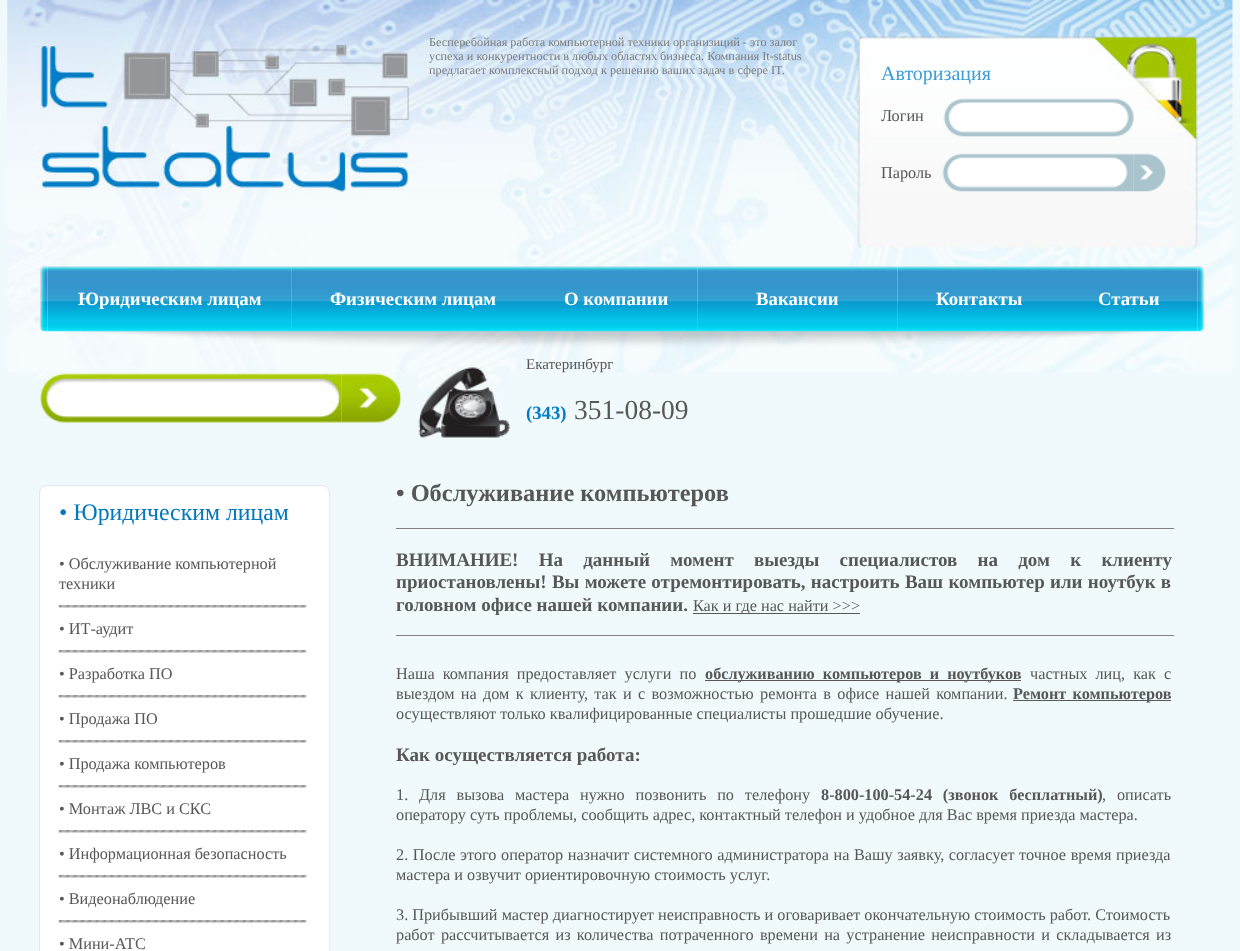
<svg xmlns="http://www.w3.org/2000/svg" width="1240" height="951">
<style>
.a{font:12.25px Liberation Serif;fill:#7c7c7c}
.b{font:20px Liberation Serif;fill:#3d9cd4}
.c{font:16.25px Liberation Serif;fill:#575757}
.d{font:bold 18.75px Liberation Serif;fill:#fff}
.e{font:15px Liberation Serif;fill:#575757}
.f{font:bold 18.75px Liberation Serif;fill:#007dc6}
.g{font:27.5px Liberation Serif;fill:#575757}
.h{font:23.75px Liberation Serif;fill:#0277bc}
.i{font:bold 24.4px Liberation Serif;fill:#575757}
.j{font:bold 19px Liberation Serif;fill:#575757}
.k{font:bold 16.25px Liberation Serif;fill:#575757}
</style>
<rect width="100%" height="100%" fill="#f0fafd"/>
<image href="1.png" x="7" y="0" width="1226" height="373"/>
<image href="2.png" x="7" y="0" width="403" height="194"/>
<image href="3.png" x="943" y="98" width="191" height="39"/>
<image href="4.png" x="942" y="153" width="192" height="39"/>
<image href="5.png" x="1133" y="153" width="33" height="39"/>
<image href="6.png" x="39" y="266" width="9" height="66"/>
<image href="7.png" x="47" y="266" width="245" height="66"/>
<image href="8.png" x="291" y="266" width="244" height="66"/>
<image href="9.png" x="535" y="266" width="163" height="66"/>
<image href="10.png" x="697" y="266" width="201" height="66"/>
<image href="11.png" x="897" y="266" width="163" height="66"/>
<image href="12.png" x="1060" y="266" width="138" height="66"/>
<image href="13.png" x="1197" y="266" width="10" height="66"/>
<image href="14.png" x="39" y="372" width="303" height="51"/>
<image href="15.png" x="341" y="372" width="61" height="51"/>
<image href="16.png" x="418" y="366" width="93" height="73"/>
<rect fill="#fff" stroke="#e5e8e9" x="39.5" y="485.5" width="290" height="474" rx="7.5"/>
<image href="17.png" x="58" y="605" width="249" height="3"/>
<image href="17.png" x="58" y="650" width="249" height="3"/>
<image href="17.png" x="58" y="695" width="249" height="3"/>
<image href="17.png" x="58" y="740" width="249" height="3"/>
<image href="17.png" x="58" y="785" width="249" height="3"/>
<image href="17.png" x="58" y="830" width="249" height="3"/>
<image href="17.png" x="58" y="875" width="249" height="3"/>
<image href="17.png" x="58" y="920" width="249" height="3"/>
<path fill="#808080" d="M396 528h778v1H396z"/>
<path fill="#575757" d="M693 613h167v1H693z"/>
<path fill="#808080" d="M396 635h778v1H396z"/>
<path fill="#575757" d="M705 680h316v1H705z"/>
<path fill="#575757" d="M1013 700h158v1H1013z"/>
<text class="a" x="429" y="46">Бесперебойная работа компьютерной техники организиций - это залог</text>
<text class="a" x="429" y="60">успеха и конкурентности в любых областях бизнеса. Компания It-status</text>
<text class="a" x="429" y="74">предлагает комплексный подход к решению ваших задач в сфере IT.</text>
<text class="b" x="881" y="80">Авторизация</text>
<text class="c" x="881" y="121">Логин</text>
<text class="c" x="881" y="178">Пароль</text>
<text class="d" x="78" y="305">Юридическим лицам</text>
<text class="d" x="330" y="305">Физическим лицам</text>
<text class="d" x="564" y="305">О компании</text>
<text class="d" x="756" y="305">Вакансии</text>
<text class="d" x="936" y="305">Контакты</text>
<text class="d" x="1098" y="305">Статьи</text>
<text class="e" x="526" y="369">Екатеринбург</text>
<text class="f" x="526" y="419">(343)</text>
<text class="g" x="574" y="419">351-08-09</text>
<text class="h" x="59" y="520">• Юридическим лицам</text>
<text class="c" x="59" y="569">• Обслуживание компьютерной</text>
<text class="c" x="59" y="589">техники</text>
<text class="c" x="59" y="634">• ИТ-аудит</text>
<text class="c" x="59" y="679">• Разработка ПО</text>
<text class="c" x="59" y="724">• Продажа ПО</text>
<text class="c" x="59" y="769">• Продажа компьютеров</text>
<text class="c" x="59" y="814">• Монтаж ЛВС и СКС</text>
<text class="c" x="59" y="859">• Информационная безопасность</text>
<text class="c" x="59" y="904">• Видеонаблюдение</text>
<text class="c" x="59" y="949">• Мини-АТС</text>
<text class="i" x="396" y="501">• Обслуживание компьютеров</text>
<text class="j" x="396" y="566" word-spacing="15.5">ВНИМАНИЕ! На данный момент выезды специалистов на дом к клиенту</text>
<text class="j" x="396" y="588" word-spacing="0.5">приостановлены! Вы можете отремонтировать, настроить Ваш компьютер или ноутбук в</text>
<text class="j" x="396" y="611">головном офисе нашей компании.</text>
<text class="c" x="693" y="611">Как и где нас найти &gt;&gt;&gt;</text>
<text class="c" x="396" y="679" word-spacing="4">Наша компания предоставляет услуги по</text>
<text class="k" x="705" y="679" word-spacing="4">обслуживанию компьютеров и ноутбуков</text>
<text class="c" x="1030" y="679" word-spacing="4">частных лиц, как с</text>
<text class="c" x="396" y="699" word-spacing="2.25">выездом на дом к клиенту, так и с возможностью ремонта в офисе нашей компании.</text>
<text class="k" x="1013" y="699" word-spacing="2.25">Ремонт компьютеров</text>
<text class="c" x="396" y="719">осуществляют только квалифицированные специалисты прошедшие обучение.</text>
<text class="j" x="396" y="761">Как осуществляется работа:</text>
<text class="c" x="396" y="800" word-spacing="6.75">1. Для вызова мастера нужно позвонить по телефону</text>
<text class="k" x="821" y="800" word-spacing="6.75">8-800-100-54-24 (звонок бесплатный)</text>
<text class="c" x="1102" y="800" word-spacing="6.75">, описать</text>
<text class="c" x="396" y="820">оператору суть проблемы, сообщить адрес, контактный телефон и удобное для Вас время приезда мастера.</text>
<text class="c" x="396" y="860" word-spacing="0.5">2. После этого оператор назначит системного администратора на Вашу заявку, согласует точное время приезда</text>
<text class="c" x="396" y="880">мастера и озвучит ориентировочную стоимость услуг.</text>
<text class="c" x="396" y="920">3. Прибывший мастер диагностирует неисправность и оговаривает окончательную стоимость работ. Стоимость</text>
<text class="c" x="396" y="940" word-spacing="2.25">работ рассчитывается из количества потраченного времени на устранение неисправности и складывается из</text>
</svg>
